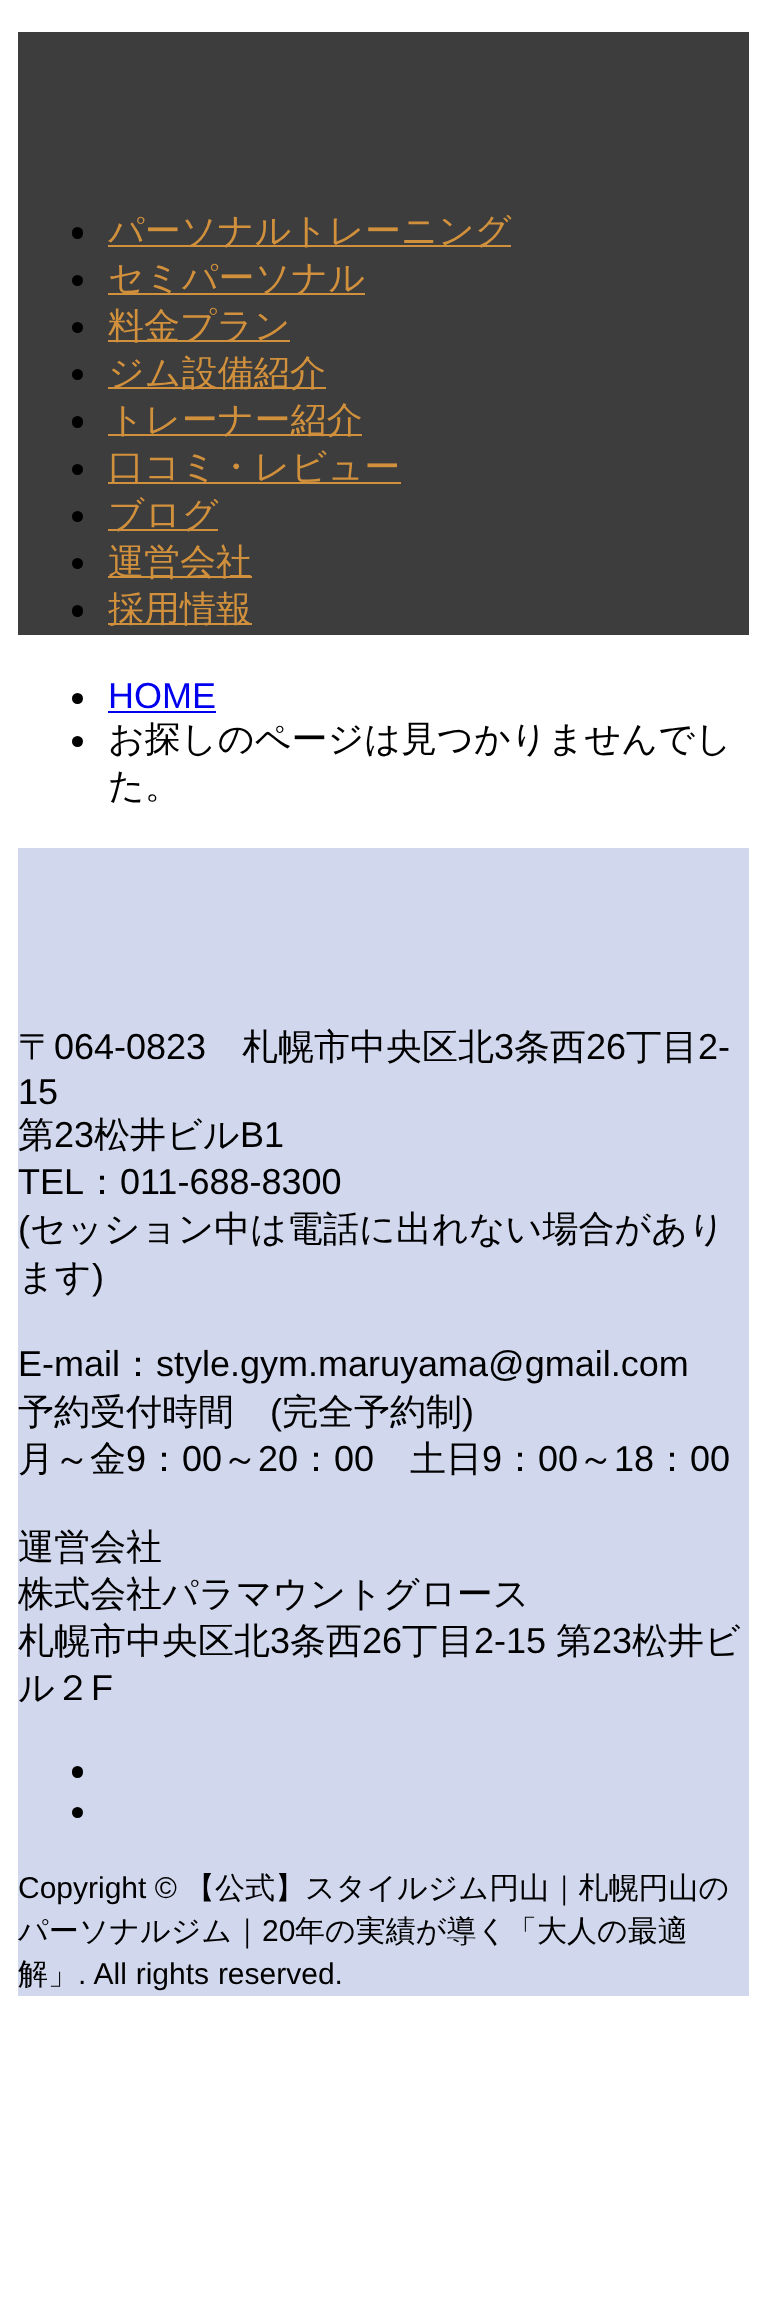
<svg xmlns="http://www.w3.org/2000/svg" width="766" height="2310">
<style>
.a{font:500 36px WenQuanYi Zen Hei;fill:#d1903c}
.b{font:36px Liberation Sans;fill:#00e}
.c{font:500 36px WenQuanYi Zen Hei;fill:#000}
.d{font:36px Liberation Sans;fill:#000}
.e{font:30px Liberation Sans;fill:#000}
.f{font:500 30px WenQuanYi Zen Hei;fill:#000}
</style>
<rect width="100%" height="100%" fill="#fff"/>
<path fill="#3d3d3d" d="M18 32h731v603H18z"/>
<rect fill="#000" x="72" y="227" width="11" height="12" rx="5.5"/>
<path fill="#d1903c" d="M108 245h403v2H108z"/>
<circle fill="#000" cx="77.5" cy="280.5" r="5.5"/>
<path fill="#d1903c" d="M108 293h257v2H108z"/>
<circle fill="#000" cx="77.5" cy="327.5" r="5.5"/>
<path fill="#d1903c" d="M108 340h182v2H108z"/>
<circle fill="#000" cx="77.5" cy="374.5" r="5.5"/>
<path fill="#d1903c" d="M108 387h218v2H108z"/>
<rect fill="#000" x="72" y="416" width="11" height="12" rx="5.5"/>
<path fill="#d1903c" d="M108 434h254v2H108z"/>
<circle fill="#000" cx="77.5" cy="469.5" r="5.5"/>
<path fill="#d1903c" d="M108 482h293v2H108z"/>
<circle fill="#000" cx="77.5" cy="516.5" r="5.5"/>
<path fill="#d1903c" d="M108 529h110v2H108z"/>
<circle fill="#000" cx="77.5" cy="563.5" r="5.5"/>
<path fill="#d1903c" d="M108 576h144v2H108z"/>
<rect fill="#000" x="72" y="605" width="11" height="12" rx="5.5"/>
<path fill="#d1903c" d="M108 623h144v2H108z"/>
<circle fill="#000" cx="77.5" cy="698.5" r="5.5"/>
<path fill="#00e" d="M108 711h108v2H108z"/>
<circle fill="#000" cx="77.5" cy="741.5" r="5.5"/>
<path fill="#d1d7ed" d="M18 848h731v1148H18z"/>
<rect fill="#000" x="72" y="1766" width="11" height="12" rx="5.5"/>
<circle fill="#000" cx="77.5" cy="1812.5" r="5.5"/>
<text class="a" x="108" y="243">パーソナルトレーニング</text>
<text class="a" x="108" y="290">セミパーソナル</text>
<text class="a" x="108" y="338">料金プラン</text>
<text class="a" x="108" y="385">ジム設備紹介</text>
<text class="a" x="108" y="432">トレーナー紹介</text>
<text class="a" x="108" y="479">口コミ・レビュー</text>
<text class="a" x="108" y="527">ブログ</text>
<text class="a" x="108" y="574">運営会社</text>
<text class="a" x="108" y="621">採用情報</text>
<text class="b" x="108" y="708">HOME</text>
<text class="c" x="108" y="751">お探しのページは見つかりませんでし</text>
<text class="c" x="108" y="798">た。</text>
<text class="c" x="18" y="1059">〒</text>
<text class="d" x="54" y="1059">064-0823</text>
<text class="c" x="242" y="1059">札幌市中央区北</text>
<text class="d" x="494" y="1059">3</text>
<text class="c" x="514" y="1059">条西</text>
<text class="d" x="586" y="1059">26</text>
<text class="c" x="626" y="1059">丁目</text>
<text class="d" x="698" y="1059">2-</text>
<text class="d" x="18" y="1104">15</text>
<text class="c" x="18" y="1147">第</text>
<text class="d" x="54" y="1147">23</text>
<text class="c" x="94" y="1147">松井ビル</text>
<text class="d" x="240" y="1147">B1</text>
<text class="d" x="18" y="1194">TEL</text>
<text class="c" x="84" y="1194">：</text>
<text class="d" x="120" y="1194">011-688-8300</text>
<text class="d" x="18" y="1241">(</text>
<text class="c" x="30" y="1241">セッション中は電話に出れない場合があり</text>
<text class="c" x="18" y="1289">ます</text>
<text class="d" x="92" y="1289">)</text>
<text class="d" x="18" y="1376">E-mail</text>
<text class="c" x="120" y="1376">：</text>
<text class="d" x="156" y="1376">style.gym.maruyama@gmail.com</text>
<text class="c" x="18" y="1424">予約受付時間</text>
<text class="d" x="270" y="1424">(</text>
<text class="c" x="282" y="1424">完全予約制</text>
<text class="d" x="462" y="1424">)</text>
<text class="c" x="18" y="1471">月～金</text>
<text class="d" x="126" y="1471">9</text>
<text class="c" x="146" y="1471">：</text>
<text class="d" x="182" y="1471">00</text>
<text class="c" x="222" y="1471">～</text>
<text class="d" x="258" y="1471">20</text>
<text class="c" x="298" y="1471">：</text>
<text class="d" x="334" y="1471">00</text>
<text class="c" x="410" y="1471">土日</text>
<text class="d" x="482" y="1471">9</text>
<text class="c" x="502" y="1471">：</text>
<text class="d" x="538" y="1471">00</text>
<text class="c" x="578" y="1471">～</text>
<text class="d" x="614" y="1471">18</text>
<text class="c" x="654" y="1471">：</text>
<text class="d" x="690" y="1471">00</text>
<text class="c" x="18" y="1559">運営会社</text>
<text class="c" x="18" y="1606">株式会社パラマウントグロース</text>
<text class="c" x="18" y="1653">札幌市中央区北</text>
<text class="d" x="270" y="1653">3</text>
<text class="c" x="290" y="1653">条西</text>
<text class="d" x="362" y="1653">26</text>
<text class="c" x="402" y="1653">丁目</text>
<text class="d" x="474" y="1653">2-15</text>
<text class="c" x="556" y="1653">第</text>
<text class="d" x="592" y="1653">23</text>
<text class="c" x="632" y="1653">松井ビ</text>
<text class="c" x="18" y="1700">ル２</text>
<text class="d" x="91" y="1700">F</text>
<text class="e" x="18" y="1898">Copyright ©</text>
<text class="f" x="185" y="1898">【公式】スタイルジム円山｜札幌円山の</text>
<text class="f" x="18" y="1941">パーソナルジム｜</text>
<text class="e" x="262" y="1941">20</text>
<text class="f" x="295" y="1941">年の実績が導く「大人の最適</text>
<text class="f" x="18" y="1984">解」</text>
<text class="e" x="78" y="1984" word-spacing="0.5">. All rights reserved.</text>
</svg>
